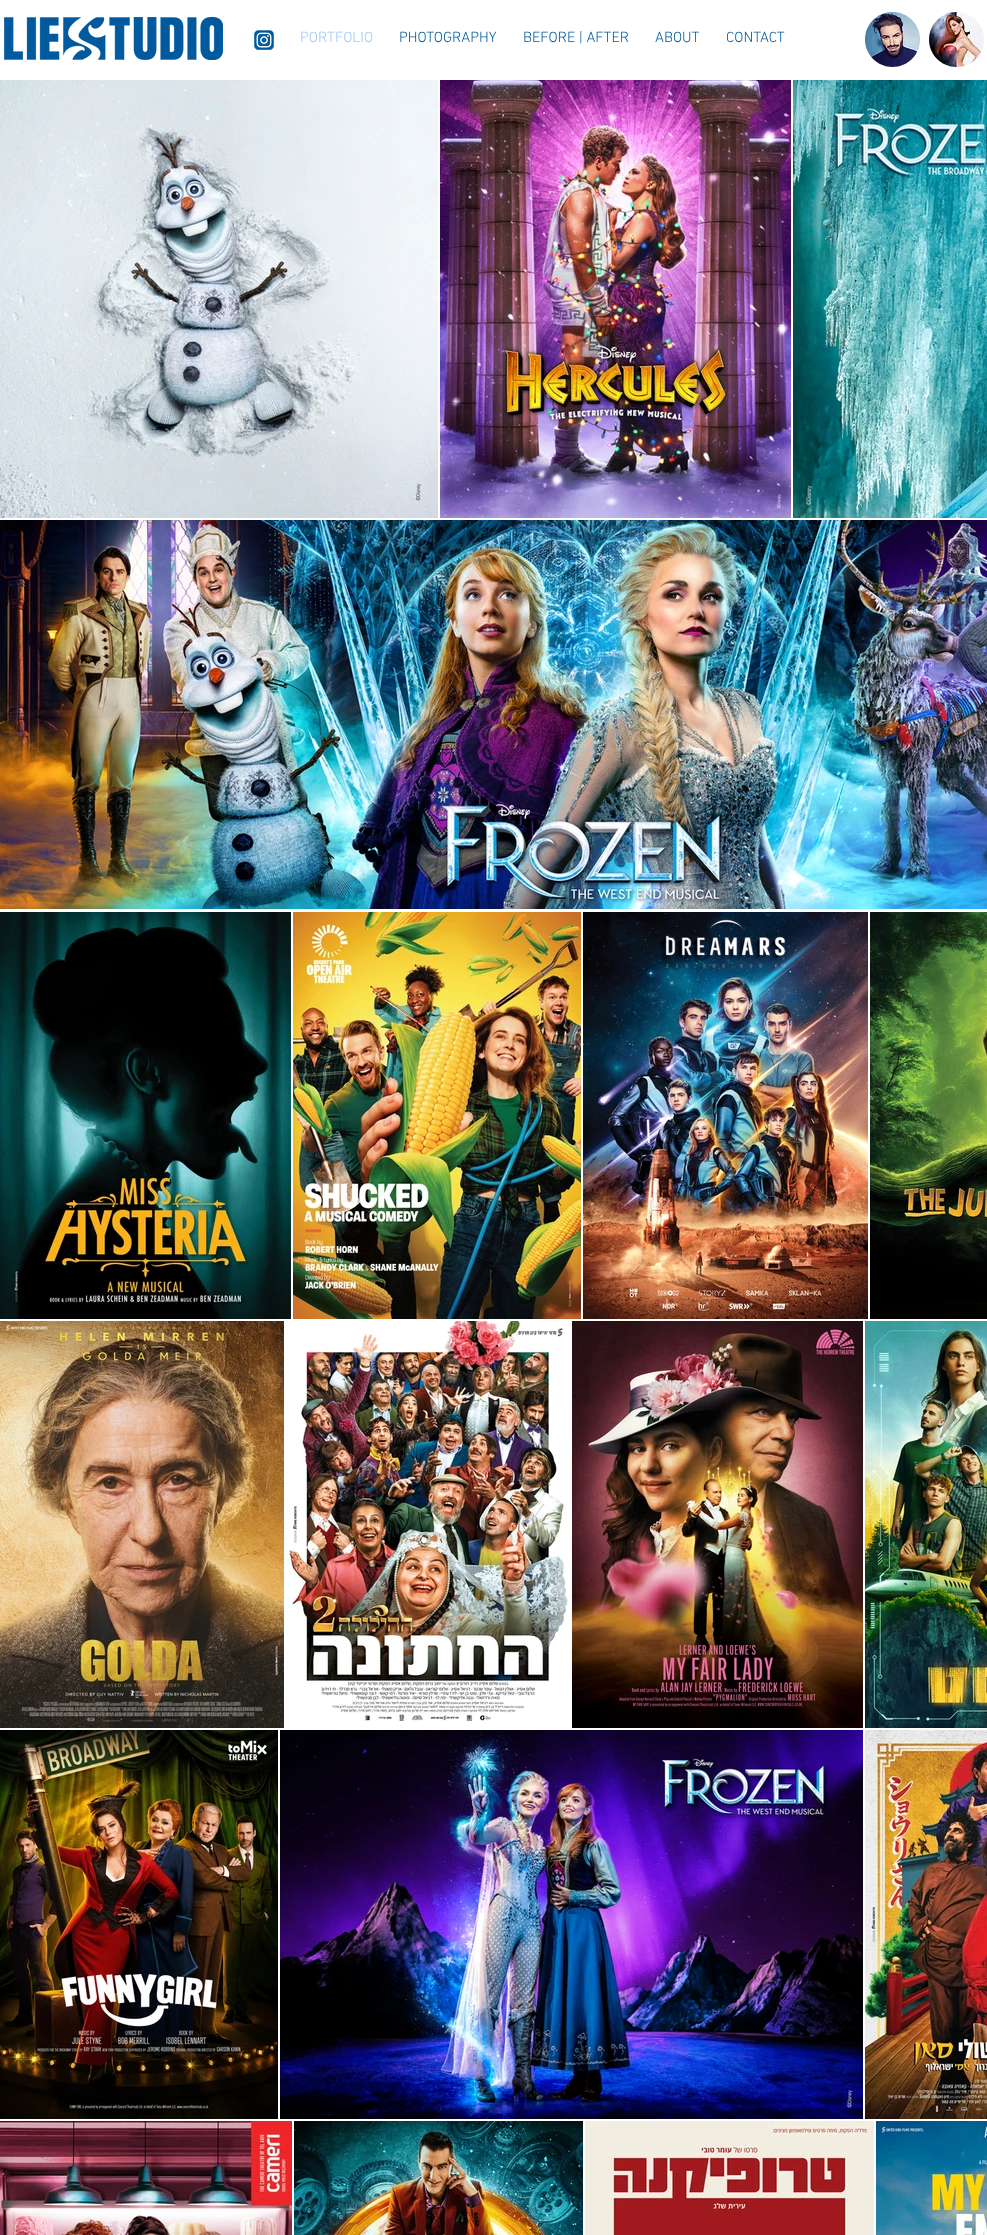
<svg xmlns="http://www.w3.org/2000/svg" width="987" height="2235">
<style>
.a{font:300 15px 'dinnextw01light';fill:#a0c8fa}
.b{font:300 15px 'dinnextw01light';fill:#005a9e}
</style>
<rect width="100%" height="100%" fill="#fff"/>
<image href="1.png" x="4" y="17" width="219" height="43"/>
<image href="2.png" x="254" y="30" width="20" height="20"/>
<image href="3.png" x="865" y="12" width="55" height="55"/>
<image href="4.png" x="929" y="12" width="55" height="55"/>
<image href="5.png" x="0" y="80" width="438" height="438"/>
<image href="6.png" x="440" y="80" width="351" height="438"/>
<image href="7.png" x="793" y="80" width="194" height="438"/>
<image href="8.png" x="0" y="520" width="987" height="389"/>
<image href="9.png" x="0" y="912" width="291" height="407"/>
<image href="10.png" x="293" y="912" width="288" height="407"/>
<image href="11.png" x="583" y="912" width="285" height="407"/>
<image href="12.png" x="870" y="912" width="117" height="390"/>
<image href="13.png" x="870" y="1302" width="117" height="17"/>
<image href="14.png" x="0" y="1321" width="284" height="407"/>
<image href="15.png" x="286" y="1321" width="284" height="407"/>
<image href="16.png" x="572" y="1321" width="291" height="407"/>
<image href="17.png" x="865" y="1321" width="122" height="407"/>
<image href="18.png" x="0" y="1730" width="278" height="389"/>
<image href="19.png" x="280" y="1730" width="583" height="389"/>
<image href="20.png" x="865" y="1730" width="122" height="389"/>
<image href="21.png" x="0" y="2121" width="292" height="114"/>
<image href="22.png" x="294" y="2121" width="289" height="114"/>
<image href="23.png" x="585" y="2121" width="289" height="114"/>
<image href="24.png" x="876" y="2121" width="111" height="114"/>
<text class="a" x="300" y="42">PORTFOLIO</text>
<text class="b" x="399" y="42">PHOTOGRAPHY</text>
<text class="b" x="523" y="42">BEFORE | AFTER</text>
<text class="b" x="655" y="42">ABOUT</text>
<text class="b" x="726" y="42">CONTACT</text>
</svg>
